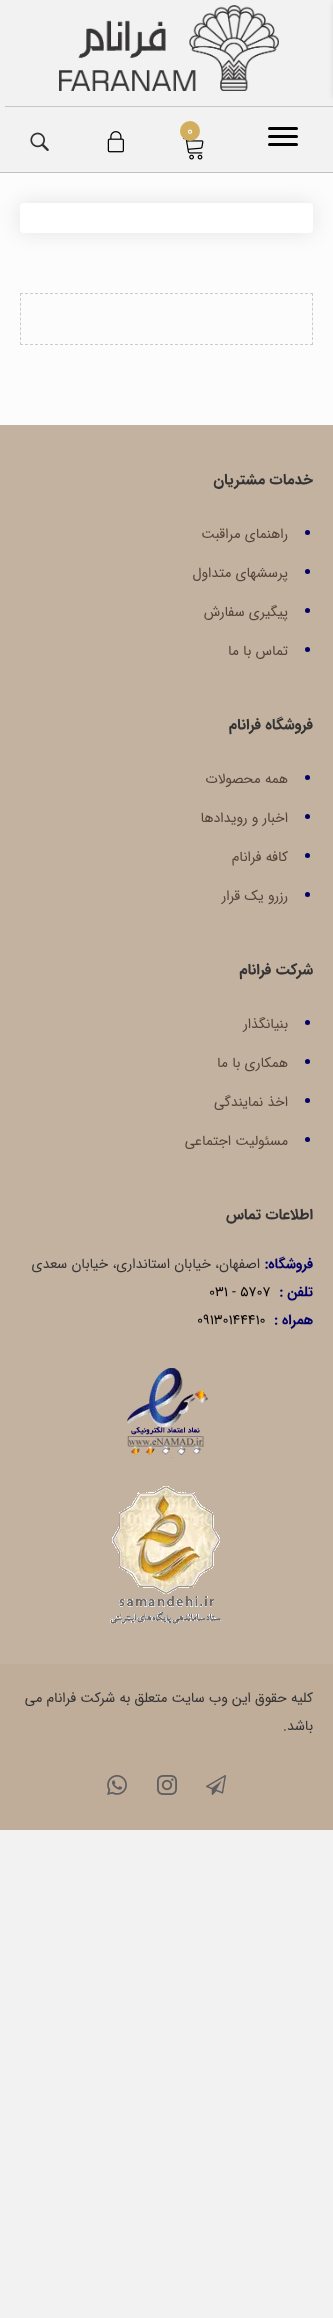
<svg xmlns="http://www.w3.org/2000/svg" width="333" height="2318">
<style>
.a{font:14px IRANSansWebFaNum;fill:#fff}
.b{font:bold 15px IRANSansWebFaNum;direction:rtl;fill:#333}
.c{font:14px IRANSansWebFaNum;direction:rtl;fill:#54453a}
.d{font:bold 14px IRANSansWebFaNum;direction:rtl;fill:#006}
.e{font:14px IRANSansWebFaNum;direction:rtl;fill:#333}
.f{font:14px IRANSansWebFaNum;fill:#020101}
</style>
<rect width="100%" height="100%" fill="#f2f2f2"/>
<path fill="#fcfcfc" d="M0 173h333v252H0z"/>
<rect fill="#0000001a" filter="blur(10px)" x="20" y="203" width="293" height="30" rx="4"/>
<path fill="#c1c1c1" d="M0 172h333v1H0z"/>
<path fill="#c6c6c6" d="M5 106h328v1H5z"/>
<image href="1.png" x="59" y="5" width="220" height="86"/>
<rect fill="#020202" x="268" y="135" width="30" height="3" rx="1.5"/>
<rect fill="#020202" x="268" y="127" width="30" height="3" rx="1.5"/>
<rect fill="#020202" x="268" y="143" width="30" height="3" rx="1.5"/>
<path fill="#0000001a" filter="blur(2.5px)" d="M333 3h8v95H333z"/>
<image href="2.png" x="183" y="138" width="21" height="22"/>
<circle fill="#d2ae5f" cx="190" cy="131" r="10"/>
<image href="3.png" x="107" y="131" width="17" height="22"/>
<image href="4.png" x="30" y="132" width="19" height="19"/>
<rect fill="#fff" x="20" y="203" width="293" height="30" rx="4"/>
<path fill="none" stroke="#ccc" stroke-dasharray="3 2" d="M20 293.5h293"/>
<path fill="none" stroke="#ccc" stroke-dasharray="3 1.9" d="M312.5 293v52"/>
<path fill="none" stroke="#ccc" stroke-dasharray="3 2" d="M20 344.5h293"/>
<path fill="none" stroke="#ccc" stroke-dasharray="3 1.9" d="M20.5 293v52"/>
<path fill="#c4b2a1" d="M0 425h333v1239H0z"/>
<circle fill="#006" cx="307.5" cy="532.5" r="2.5"/>
<circle fill="#006" cx="307.5" cy="571.5" r="2.5"/>
<circle fill="#006" cx="307.5" cy="610.5" r="2.5"/>
<circle fill="#006" cx="307.5" cy="649.5" r="2.5"/>
<circle fill="#006" cx="307.5" cy="777.5" r="2.5"/>
<circle fill="#006" cx="307.5" cy="816.5" r="2.5"/>
<circle fill="#006" cx="307.5" cy="855.5" r="2.5"/>
<circle fill="#006" cx="307.5" cy="894.5" r="2.5"/>
<circle fill="#006" cx="307.5" cy="1022.5" r="2.5"/>
<circle fill="#006" cx="307.5" cy="1061.5" r="2.5"/>
<circle fill="#006" cx="307.5" cy="1100.5" r="2.5"/>
<circle fill="#006" cx="307.5" cy="1139.5" r="2.5"/>
<image href="5.png" x="127" y="1368" width="81" height="90"/>
<image href="6.png" x="110" y="1486" width="111" height="138"/>
<path fill="#bfac99" d="M0 1664h333v166H0z"/>
<image href="7.png" x="206" y="1775" width="20" height="20"/>
<image href="8.png" x="157" y="1775" width="20" height="20"/>
<image href="9.png" x="107" y="1775" width="20" height="20"/>
<text class="a" x="187" y="135">0</text>
<text class="b" x="313" y="484">خدمات مشتریان</text>
<text class="c" x="288" y="538">راهنمای مراقبت</text>
<text class="c" x="288" y="577">پرسشهای متداول</text>
<text class="c" x="288" y="616">پیگیری سفارش</text>
<text class="c" x="288" y="655">تماس با ما</text>
<text class="b" x="313" y="729">فروشگاه فرانام</text>
<text class="c" x="288" y="783">همه محصولات</text>
<text class="c" x="288" y="822">اخبار و رویدادها</text>
<text class="c" x="288" y="861">کافه فرانام</text>
<text class="c" x="288" y="900">رزرو یک قرار</text>
<text class="b" x="313" y="974">شرکت فرانام</text>
<text class="c" x="288" y="1028">بنیانگذار</text>
<text class="c" x="288" y="1067">همکاری با ما</text>
<text class="c" x="288" y="1106">اخذ نمایندگی</text>
<text class="c" x="288" y="1145">مسئولیت اجتماعی</text>
<text class="b" x="313" y="1219">اطلاعات تماس</text>
<text class="d" x="313" y="1268">فروشگاه:</text>
<text class="e" x="260" y="1268">اصفهان، خیابان استانداری، خیابان سعدی</text>
<text class="d" x="313" y="1296">تلفن :</text>
<text class="f" x="209" y="1296">031 - 5707</text>
<text class="d" x="313" y="1324">همراه :</text>
<text class="f" x="197" y="1324">09130144410</text>
<text class="e" x="313" y="1702">کلیه حقوق این وب سایت متعلق به شرکت فرانام می</text>
<text class="e" x="313" y="1730">باشد.</text>
</svg>
